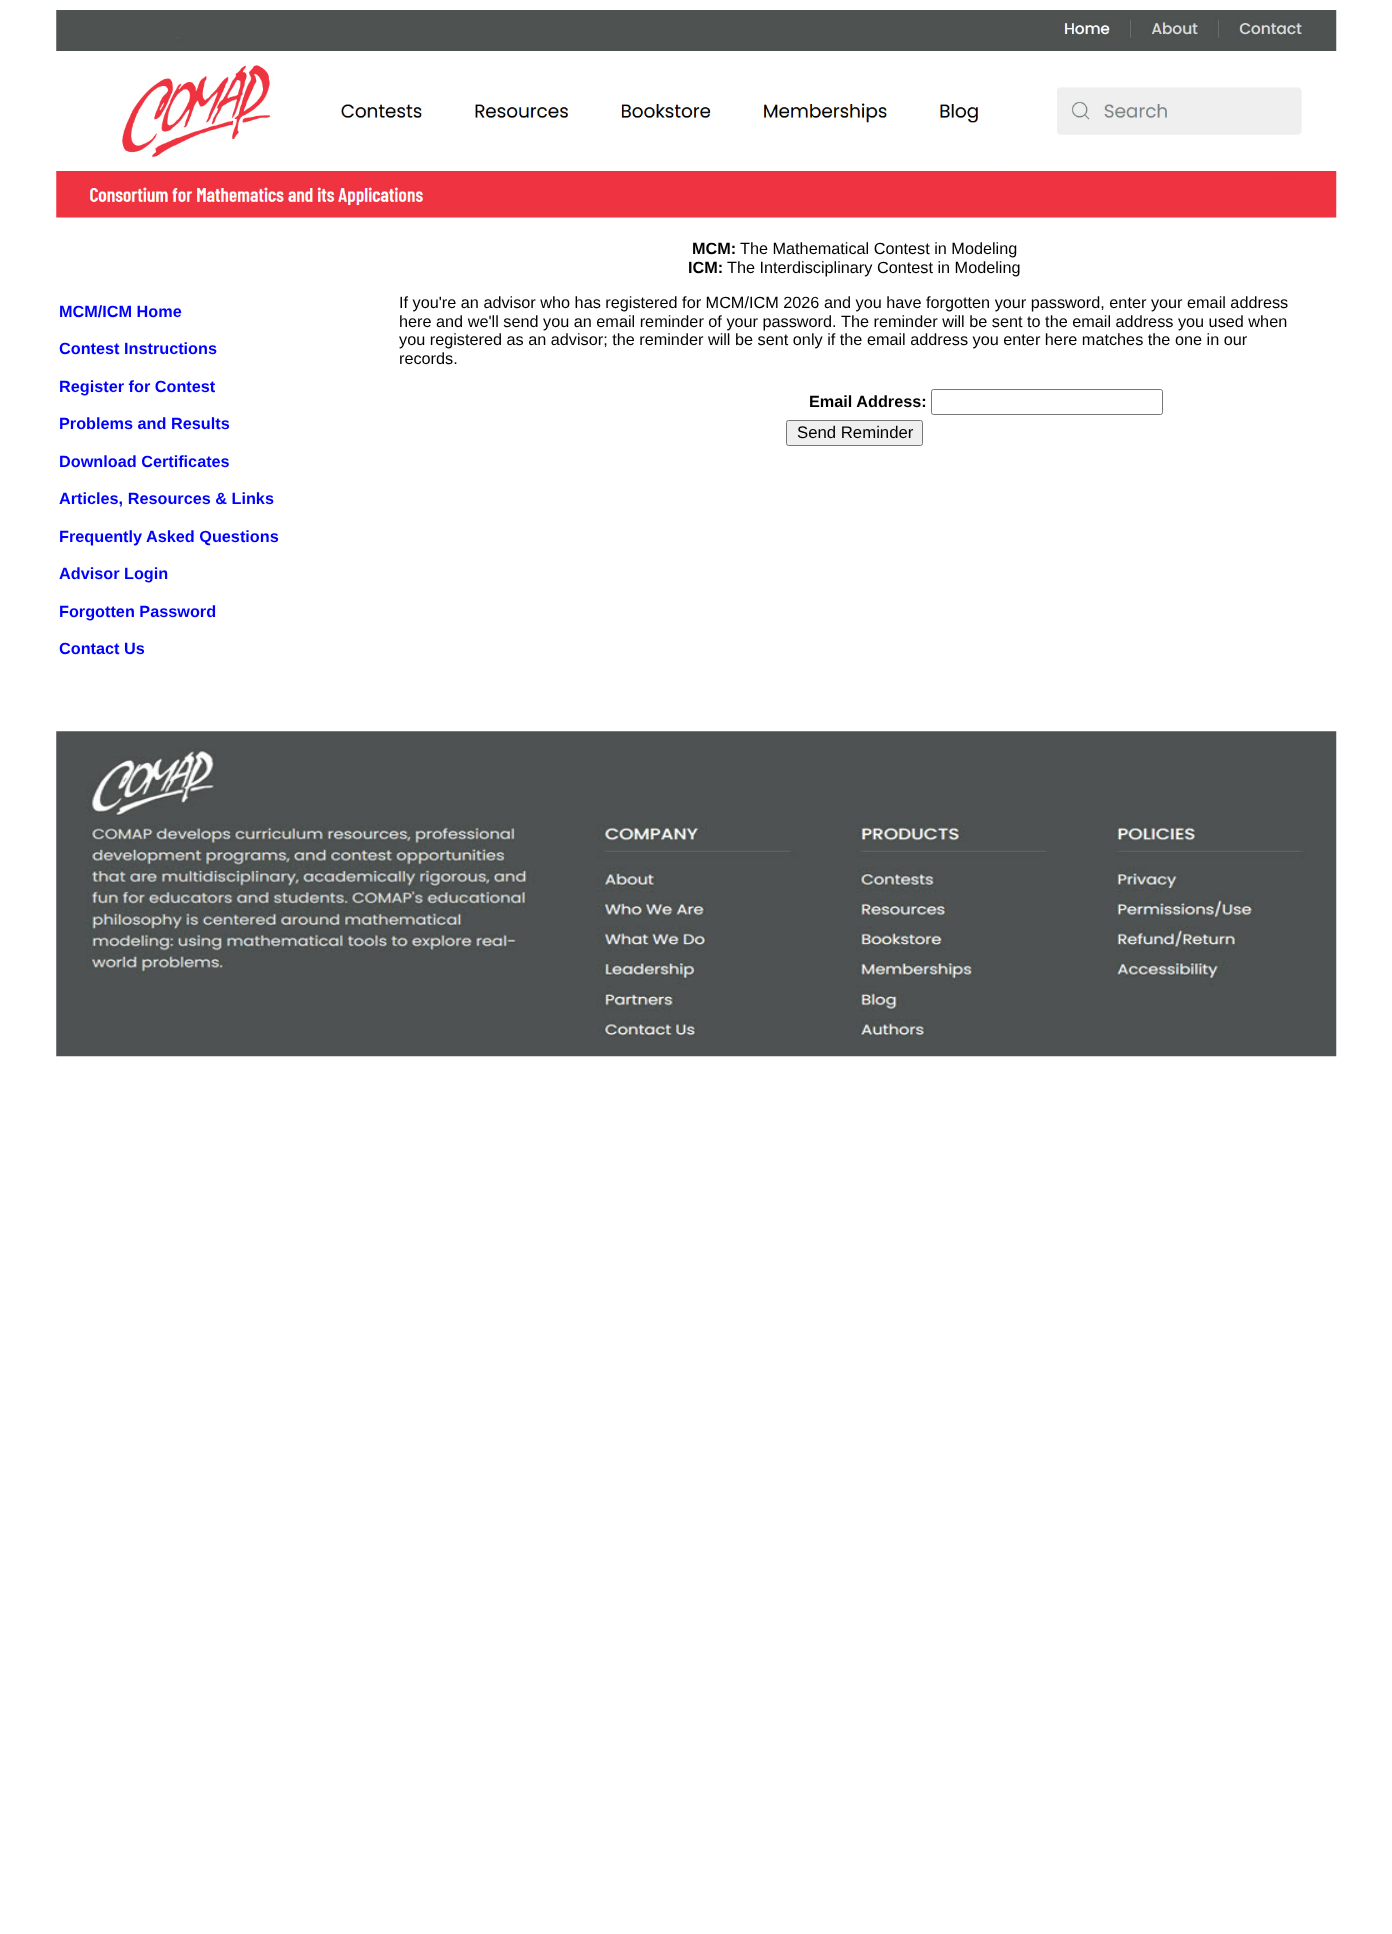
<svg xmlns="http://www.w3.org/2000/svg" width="1392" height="1934">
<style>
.a{font:bold 16.25px Liberation Sans;fill:#00f}
.b{font:bold 16.25px Liberation Sans;fill:#000}
.c{font:16.25px Liberation Sans;fill:#000}
.d{font:16.75px Liberation Sans;fill:#000}
</style>
<rect width="100%" height="100%" fill="#fff"/>
<image href="1.png" x="56" y="10" width="1281" height="208"/>
<rect fill="none" stroke="#767676" x="931.5" y="389.5" width="231" height="25" rx="2"/>
<rect fill="#efefef" stroke="#767676" x="786.5" y="420.5" width="136" height="25" rx="2"/>
<image href="2.png" x="56" y="731" width="1281" height="326"/>
<text class="a" x="59" y="317">MCM/ICM Home</text>
<text class="a" x="59" y="354">Contest Instructions</text>
<text class="a" x="59" y="392">Register for Contest</text>
<text class="a" x="59" y="429">Problems and Results</text>
<text class="a" x="59" y="467">Download Certificates</text>
<text class="a" x="59" y="504">Articles, Resources &amp; Links</text>
<text class="a" x="59" y="542">Frequently Asked Questions</text>
<text class="a" x="59" y="579">Advisor Login</text>
<text class="a" x="59" y="617">Forgotten Password</text>
<text class="a" x="59" y="654">Contact Us</text>
<text class="b" x="692" y="254">MCM:</text>
<text class="c" x="740" y="254">The Mathematical Contest in Modeling</text>
<text class="b" x="688" y="273">ICM:</text>
<text class="c" x="727" y="273">The Interdisciplinary Contest in Modeling</text>
<text class="c" x="399" y="308">If you're an advisor who has registered for MCM/ICM 2026 and you have forgotten your password, enter your email address</text>
<text class="c" x="399" y="327">here and we'll send you an email reminder of your password.</text>
<text class="c" x="841" y="327">The reminder will be sent to the email address you used when</text>
<text class="c" x="399" y="345">you registered as an advisor; the reminder will be sent only if the email address you enter here matches the one in our</text>
<text class="c" x="399" y="364">records.</text>
<text class="b" x="809" y="407">Email Address:</text>
<text class="d" x="797" y="438">Send Reminder</text>
</svg>
